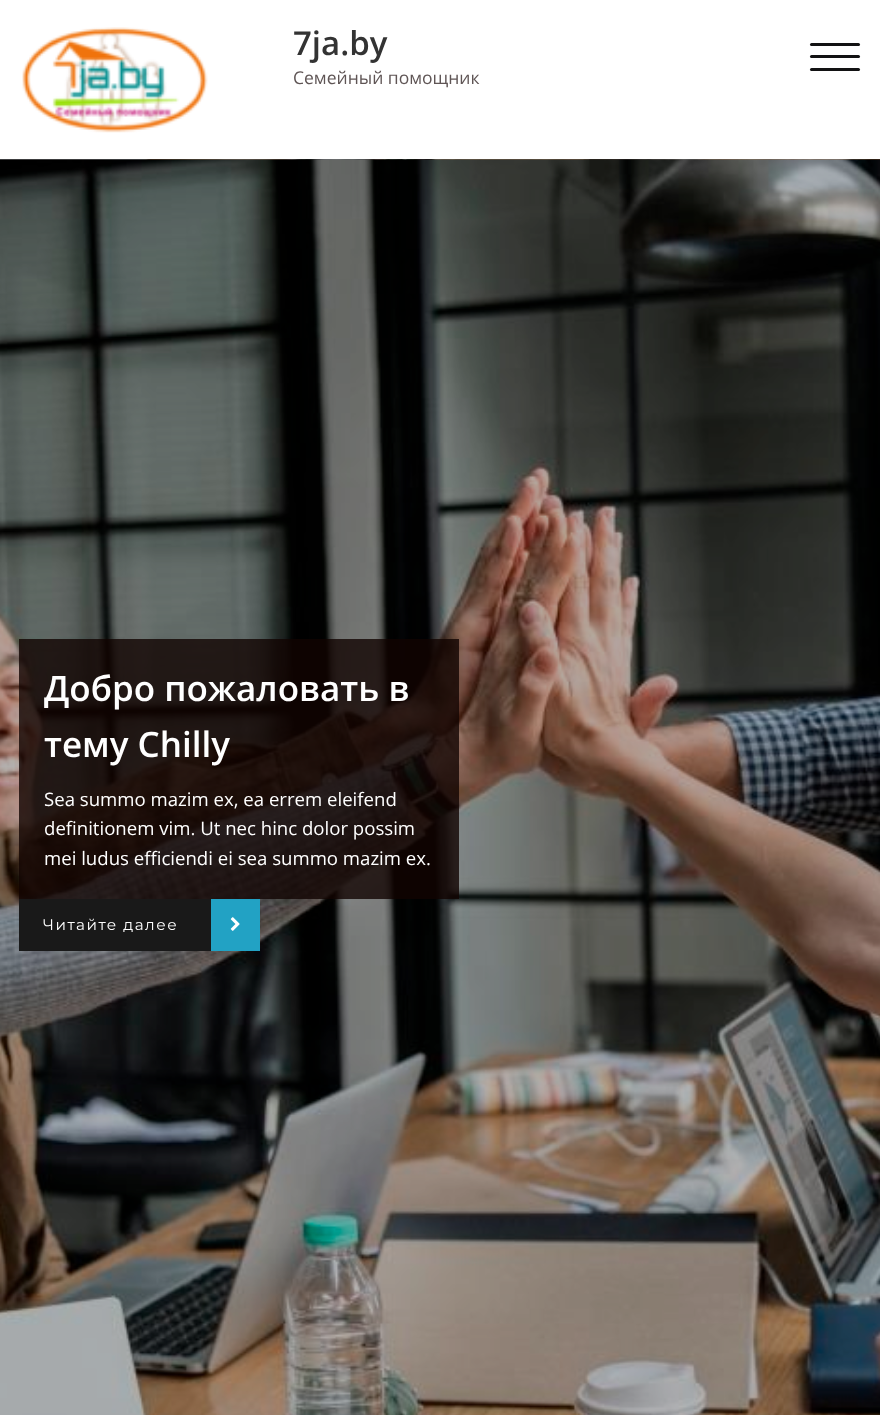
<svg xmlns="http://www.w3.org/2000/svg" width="880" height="1415">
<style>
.a{font:600 33px Open Sans;fill:#333}
.b{font:17.5px Open Sans;fill:#5f5555}
.c{font:600 35px Open Sans;fill:#fff}
.d{font:18.6px Open Sans;fill:#fff}
.e{font:100 15.25px Montserrat;letter-spacing:1.5px;fill:#fff}
</style>
<rect width="100%" height="100%" fill="#fff"/>
<image href="1.png" x="22" y="27" width="186" height="106"/>
<rect fill="#121213" x="810" y="43" width="50" height="3" rx="1.5"/>
<rect fill="#121213" x="810" y="55" width="50" height="3" rx="1.5"/>
<rect fill="#121213" x="810" y="68" width="50" height="3" rx="1.5"/>
<image href="2.png" x="0" y="159" width="880" height="1256"/>
<path fill="#120401cc" d="M19 639h440v260H19z"/>
<path fill="#191919" d="M19 899h192v52H19z"/>
<path fill="#22a2c4" d="M211 899h49v52H211z"/>
<image href="3.png" x="230" y="917" width="10" height="14"/>
<text class="a" x="293" y="55">7ja.by</text>
<text class="b" x="293" y="84">Семейный помощник</text>
<text class="c" x="44" y="701">Добро пожаловать в</text>
<text class="c" x="44" y="757">тему Chilly</text>
<text class="d" x="44" y="806">Sea summo mazim ex, ea errem eleifend</text>
<text class="d" x="44" y="835">definitionem vim. Ut nec hinc dolor possim</text>
<text class="d" x="44" y="865">mei ludus efficiendi ei sea summo mazim ex.</text>
<text class="e" x="43" y="930">Читайте далее</text>
</svg>
